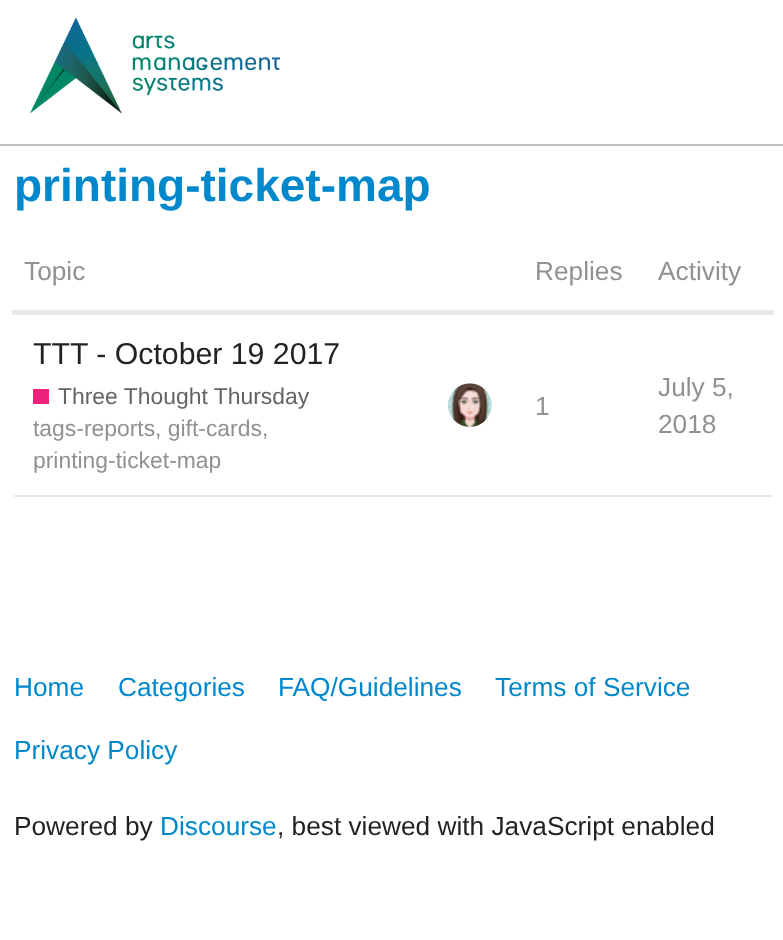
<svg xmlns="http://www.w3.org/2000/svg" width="783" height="940">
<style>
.a{font:bold 46px Liberation Sans;fill:#08c}
.b{font:26.25px Liberation Sans;fill:#919191}
.c{font:30.25px Liberation Sans;fill:#222}
.d{font:22.9px Liberation Sans;fill:#646464}
.e{font:22.9px Liberation Sans;fill:#919191}
.f{font:26.25px Liberation Sans;fill:#08c}
.g{font:26.25px Liberation Sans;fill:#222}
</style>
<rect width="100%" height="100%" fill="#fff"/>
<path fill="#bdbdbd" d="M0 144h783v2H0z"/>
<image href="1.png" x="30" y="17" width="250" height="97"/>
<path fill="#e9e9e9" d="M12 310h762v5H12z"/>
<path fill="#e9e9e9" d="M14 495h758v2H14z"/>
<path fill="#ed207b" d="M33 389h16v15H33z"/>
<image href="2.png" x="448" y="383" width="44" height="44"/>
<text class="a" x="14" y="201">printing-ticket-map</text>
<text class="b" x="24" y="280">Topic</text>
<text class="b" x="535" y="280">Replies</text>
<text class="b" x="658" y="280">Activity</text>
<text class="c" x="33" y="364">TTT - October 19 2017</text>
<text class="d" x="58" y="404">Three Thought Thursday</text>
<text class="e" x="33" y="436">tags-reports</text>
<text class="e" x="155" y="436">, gift-cards</text>
<text class="e" x="262" y="436">,</text>
<text class="e" x="33" y="468">printing-ticket-map</text>
<text class="b" x="535" y="415">1</text>
<text class="b" x="658" y="396">July 5,</text>
<text class="b" x="658" y="433">2018</text>
<text class="f" x="14" y="696">Home</text>
<text class="f" x="118" y="696">Categories</text>
<text class="f" x="278" y="696">FAQ/Guidelines</text>
<text class="f" x="495" y="696">Terms of Service</text>
<text class="f" x="14" y="759">Privacy Policy</text>
<text class="g" x="14" y="835">Powered by</text>
<text class="f" x="160" y="835">Discourse</text>
<text class="g" x="277" y="835">, best viewed with JavaScript enabled</text>
</svg>
